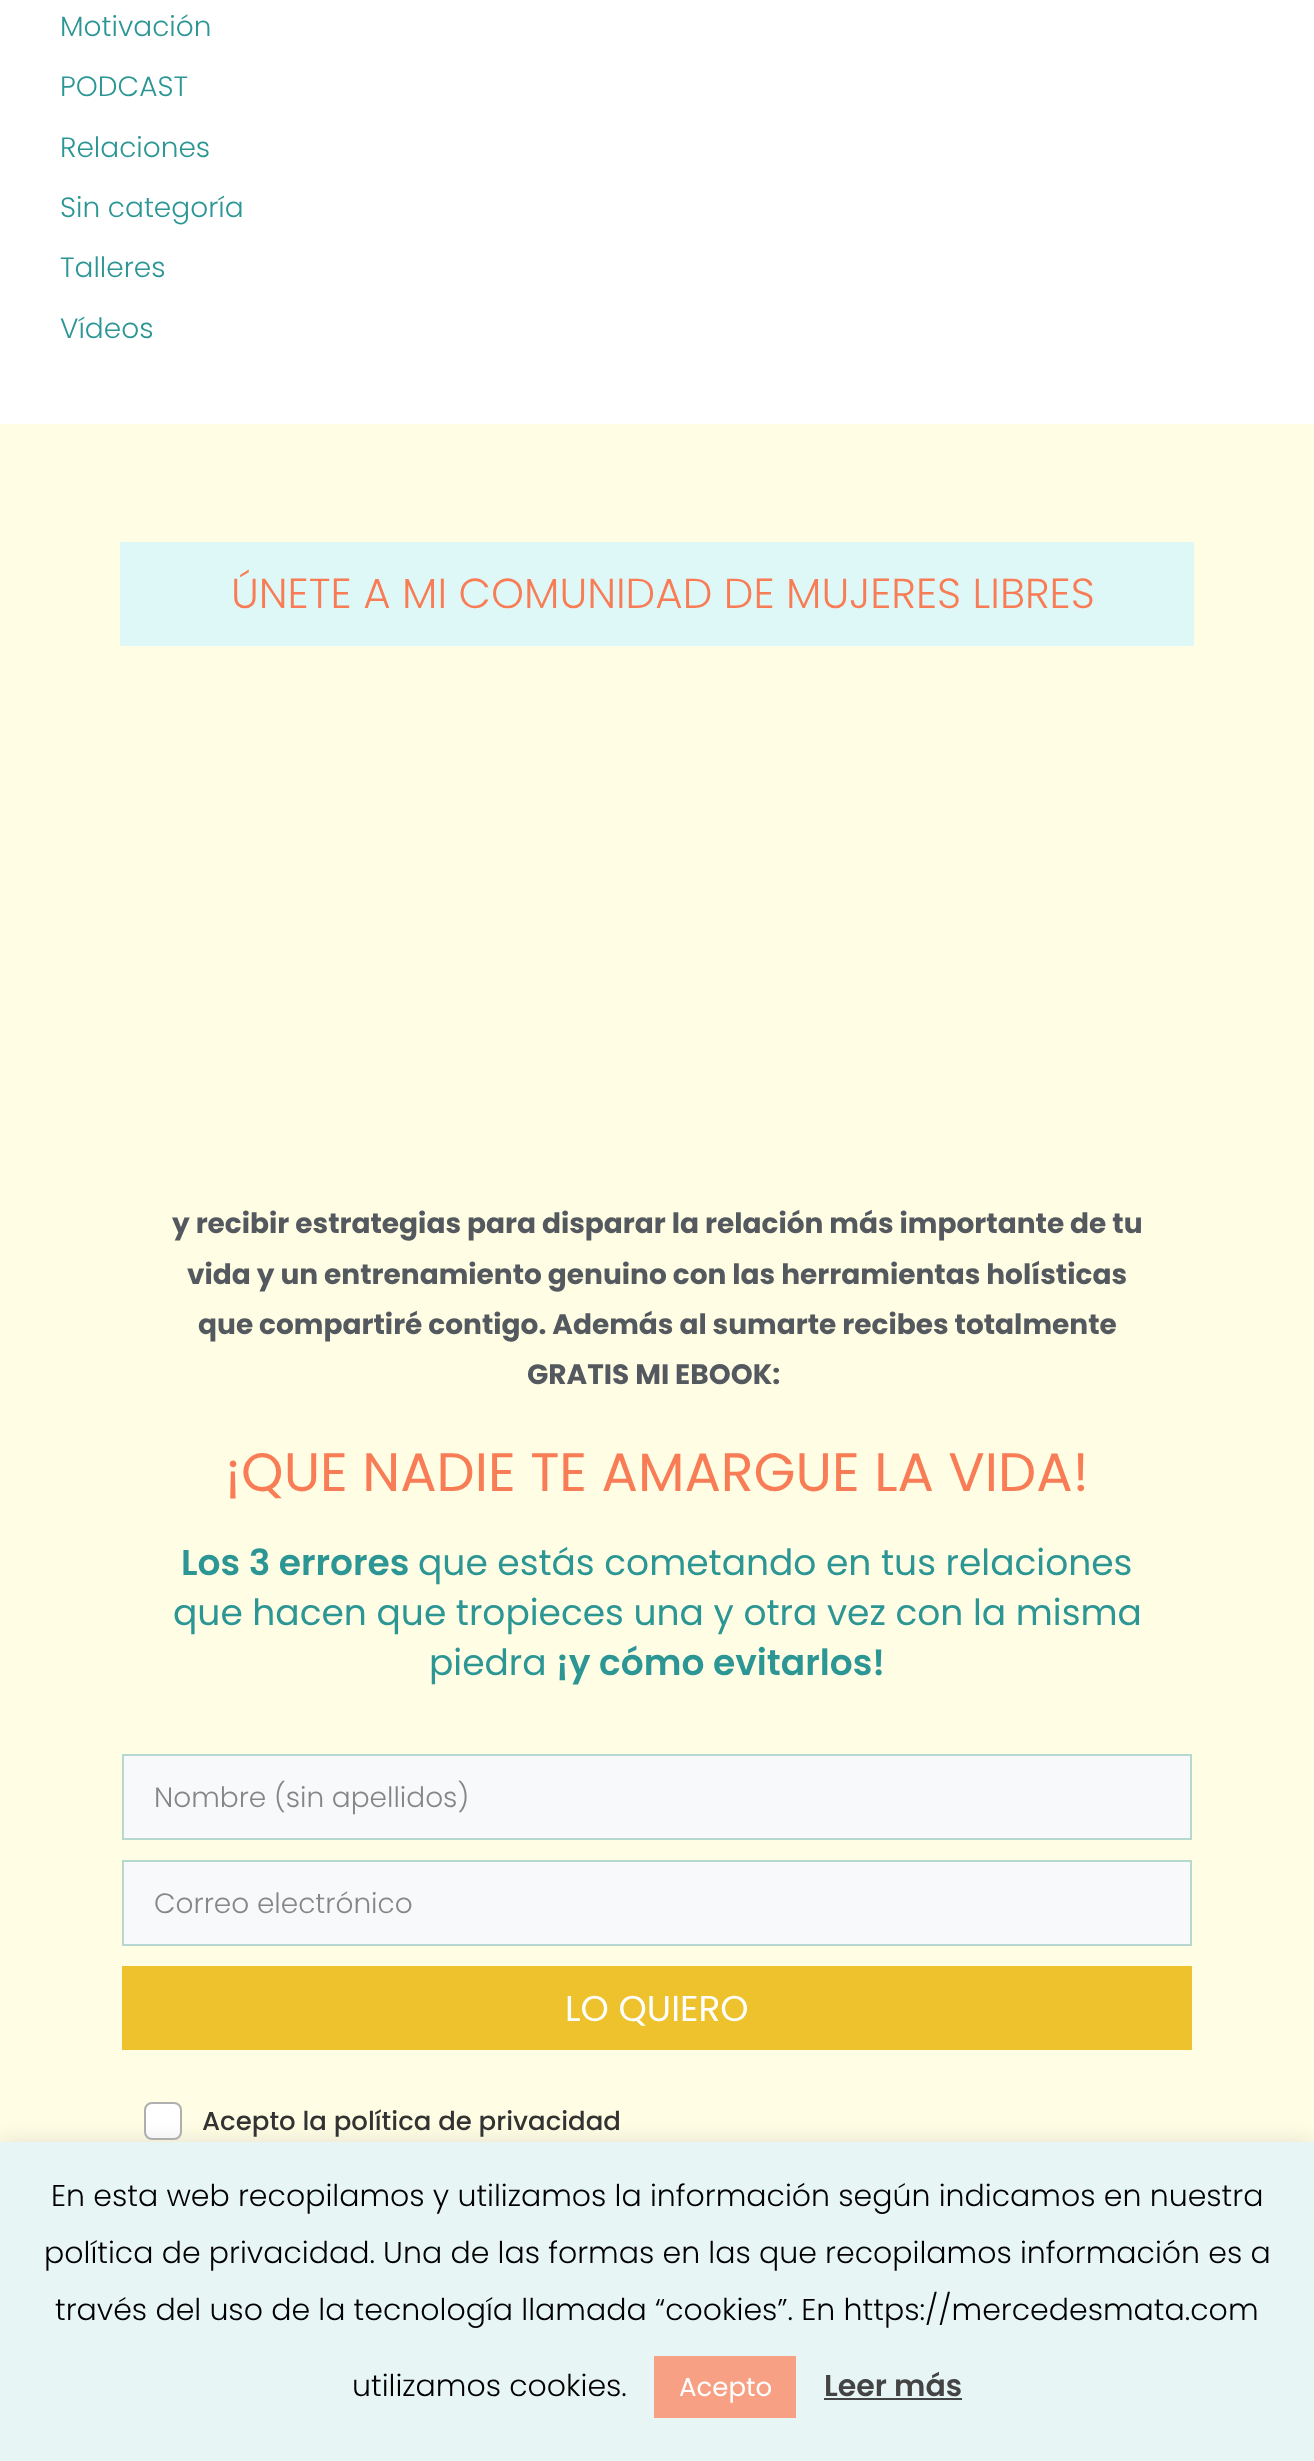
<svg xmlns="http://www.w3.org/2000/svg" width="1314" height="2461">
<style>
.a{font:300 28px Poppins;fill:#2c9695}
.b{font:300 42px Poppins;fill:#f87d56}
.c{font:bold 28px Poppins;fill:#54595f}
.d{font:54px Poppins;fill:#f87d56}
.e{font:600 36px Poppins;fill:#2c9695}
.f{font:36px Poppins;fill:#2c9695}
.g{font:300 28px Poppins;fill:#868687}
.h{font:36px Poppins;fill:#fff}
.i{font:500 26px Poppins;fill:#333}
.j{font:300 30px Poppins;fill:#000}
.k{font:26px Poppins;fill:#fff}
.l{font:600 30px Poppins;fill:#444}
</style>
<rect width="100%" height="100%" fill="#fff"/>
<path fill="#fffde3" d="M0 424h1314v1718H0z"/>
<path fill="#def8f8" d="M120 542h1074v104H120z"/>
<path fill="#f8f9fa" stroke="#b7d8d1" stroke-width="2" d="M123 1755h1068v84H123z"/>
<path fill="#f8f9fa" stroke="#b7d8d1" stroke-width="2" d="M123 1861h1068v84H123z"/>
<path fill="#eec22c" d="M122 1966h1070v84H122z"/>
<rect fill="#fff" stroke="#afafaf" stroke-width="2" x="145" y="2103" width="36" height="36" rx="7"/>
<path fill="#acabab4d" filter="blur(10px)" d="M0 2140h1314v320H0z"/>
<path fill="#e7f5f5" d="M0 2142h1314v319H0z"/>
<path fill="#f8a084" d="M654 2356h142v62H654z"/>
<path fill="#444" d="M824 2398h138v2H824z"/>
<text class="a" x="60" y="36">Motivación</text>
<text class="a" x="60" y="96">PODCAST</text>
<text class="a" x="60" y="157">Relaciones</text>
<text class="a" x="60" y="217">Sin categoría</text>
<text class="a" x="60" y="277">Talleres</text>
<text class="a" x="60" y="338">Vídeos</text>
<text class="b" x="231" y="608">ÚNETE A MI COMUNIDAD DE MUJERES LIBRES</text>
<text class="c" x="172" y="1233">y recibir estrategias para disparar la relación más importante de tu</text>
<text class="c" x="187" y="1284">vida y un entrenamiento genuino con las herramientas holísticas</text>
<text class="c" x="198" y="1334">que compartiré contigo. Además al sumarte recibes totalmente</text>
<text class="c" x="527" y="1384">GRATIS MI EBOOK:</text>
<text class="d" x="225" y="1491">¡QUE NADIE TE AMARGUE LA VIDA!</text>
<text class="e" x="181" y="1575">Los 3 errores</text>
<text class="f" x="418" y="1575">que estás cometando en tus relaciones</text>
<text class="f" x="173" y="1625">que hacen que tropieces una y otra vez con la misma</text>
<text class="f" x="429" y="1675">piedra</text>
<text class="e" x="556" y="1675">¡y cómo evitarlos!</text>
<text class="g" x="154" y="1807">Nombre (sin apellidos)</text>
<text class="g" x="154" y="1913">Correo electrónico</text>
<text class="h" x="565" y="2021">LO QUIERO</text>
<text class="i" x="202" y="2130">Acepto la política de privacidad</text>
<text class="j" x="51" y="2206">En esta web recopilamos y utilizamos la información según indicamos en nuestra</text>
<text class="j" x="44" y="2263">política de privacidad. Una de las formas en las que recopilamos información es a</text>
<text class="j" x="55" y="2320">través del uso de la tecnología llamada “cookies”. En https://mercedesmata.com</text>
<text class="j" x="352" y="2396">utilizamos cookies.</text>
<text class="k" x="679" y="2396">Acepto</text>
<text class="l" x="824" y="2396">Leer más</text>
</svg>
